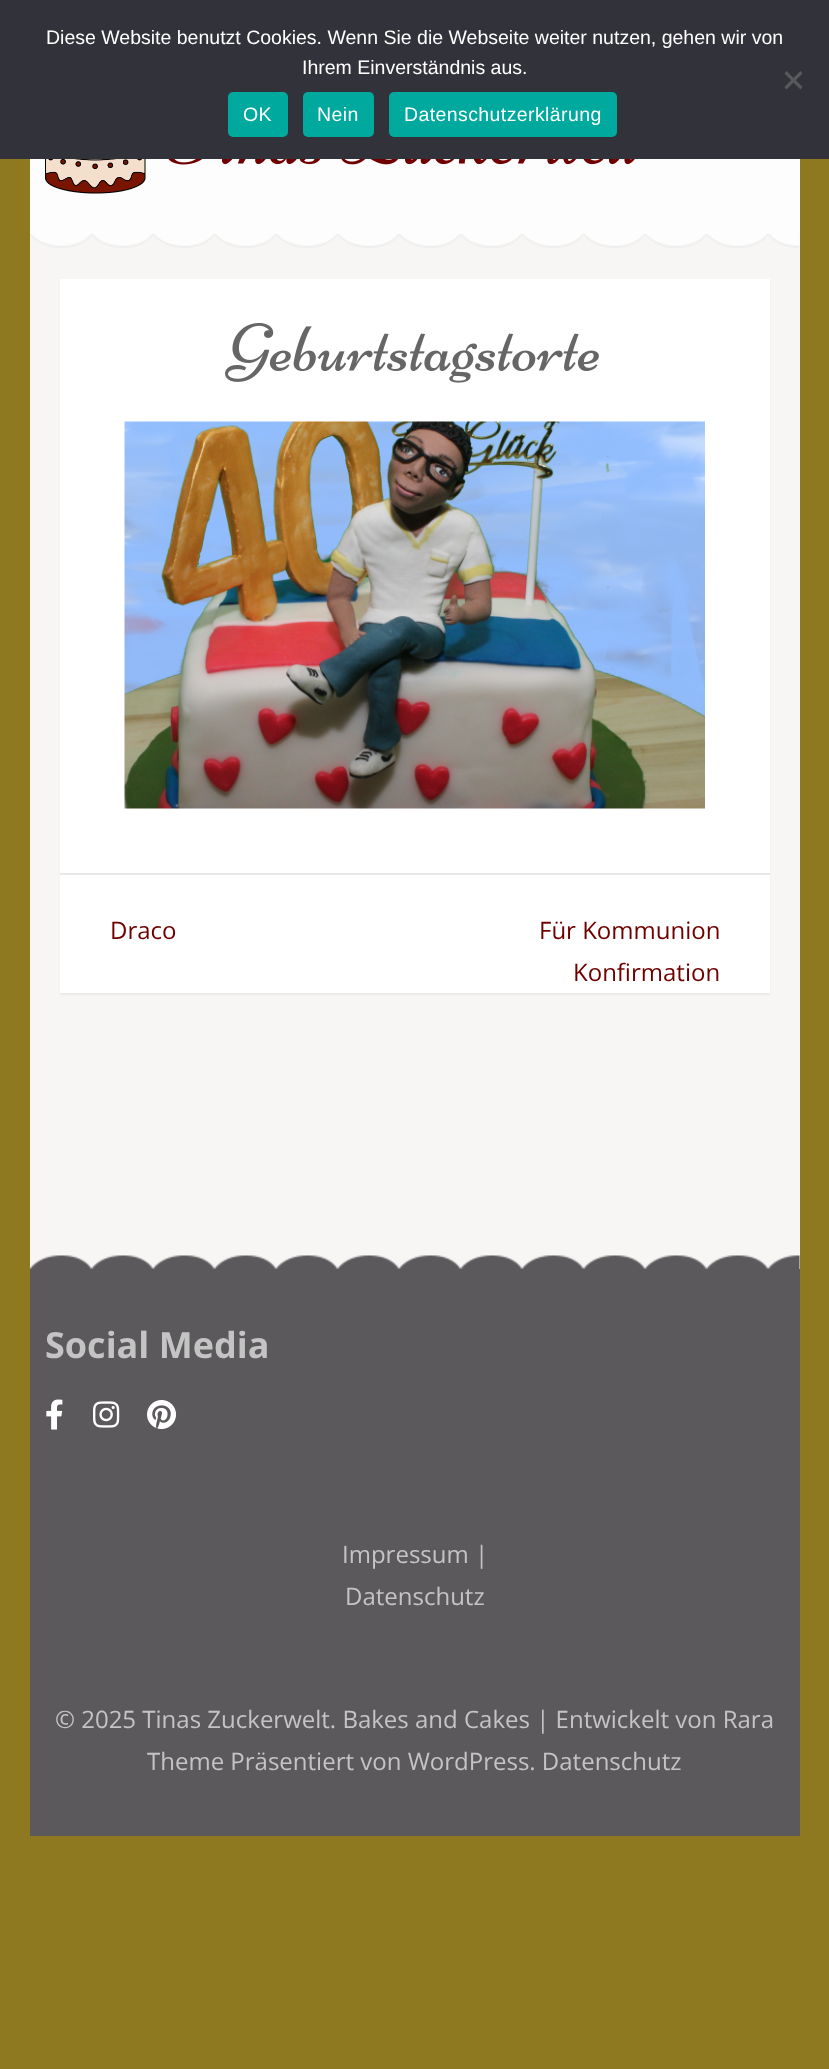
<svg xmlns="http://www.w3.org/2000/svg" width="829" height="2069">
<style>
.a{font:19.5px Liberation Sans;fill:#fff}
.b{font:19.5px Liberation Sans;letter-spacing:0.4px;fill:#fff}
.c{font:24px Open Sans;fill:#700000}
.d{font:bold 36px Open Sans;fill:#c4c4c4}
.e{font:24px Open Sans;fill:#c4c4c4}
</style>
<rect width="100%" height="100%" fill="#8e7820"/>
<path fill="#32323a" d="M0 0h829v159H0z"/>
<path fill="#59595d" d="M800.5 71l2 2.5l-16 16l-2-2.5z"/>
<path fill="#59595d" d="M784.5 73.5l2-2.5l16 16l-2 2.5z"/>
<rect fill="#00a99d" x="228" y="92" width="60" height="45" rx="5"/>
<rect fill="#00a99d" x="303" y="92" width="71" height="45" rx="5"/>
<rect fill="#00a99d" x="389" y="92" width="228" height="45" rx="5"/>
<path fill="#f7f6f4" d="M30 234h770v1035H30z"/>
<path fill="#fdfdfd" d="M30 159h770v75H30z"/>
<image href="1.png" x="45" y="159" width="101" height="35"/>
<image href="2.png" x="168" y="159" width="467" height="6"/>
<image href="3.png" x="30" y="234" width="770" height="14"/>
<path fill="#0000000d" filter="blur(1px)" d="M60 281h710v714H60z"/>
<path fill="#fff" d="M60 279h710v714H60z"/>
<path fill="#e8e8e8" d="M60 873h710v2H60z"/>
<image href="4.png" x="225" y="323" width="374" height="60"/>
<image href="5.png" x="124" y="421" width="581" height="388"/>
<path fill="#5c595c" d="M30 1269h770v567H30z"/>
<image href="6.png" x="30" y="1255" width="770" height="14"/>
<image href="7.png" x="46" y="1399" width="17" height="31"/>
<image href="8.png" x="93" y="1401" width="27" height="27"/>
<image href="9.png" x="147" y="1400" width="30" height="29"/>
<text class="a" x="46" y="44">Diese Website benutzt Cookies. Wenn Sie die Webseite weiter nutzen, gehen wir von</text>
<text class="a" x="302" y="74">Ihrem Einverständnis aus.</text>
<text class="b" x="243" y="121">OK</text>
<text class="b" x="317" y="121">Nein</text>
<text class="b" x="404" y="121">Datenschutzerklärung</text>
<text class="c" x="110" y="939">Draco</text>
<text class="c" x="539" y="939">Für Kommunion</text>
<text class="c" x="573" y="981">Konfirmation</text>
<text class="d" x="45" y="1358">Social Media</text>
<text class="e" x="342" y="1563">Impressum |</text>
<text class="e" x="345" y="1605">Datenschutz</text>
<text class="e" x="55" y="1728">© 2025 Tinas Zuckerwelt. Bakes and Cakes | Entwickelt von Rara</text>
<text class="e" x="147" y="1770">Theme Präsentiert von WordPress. Datenschutz</text>
</svg>
